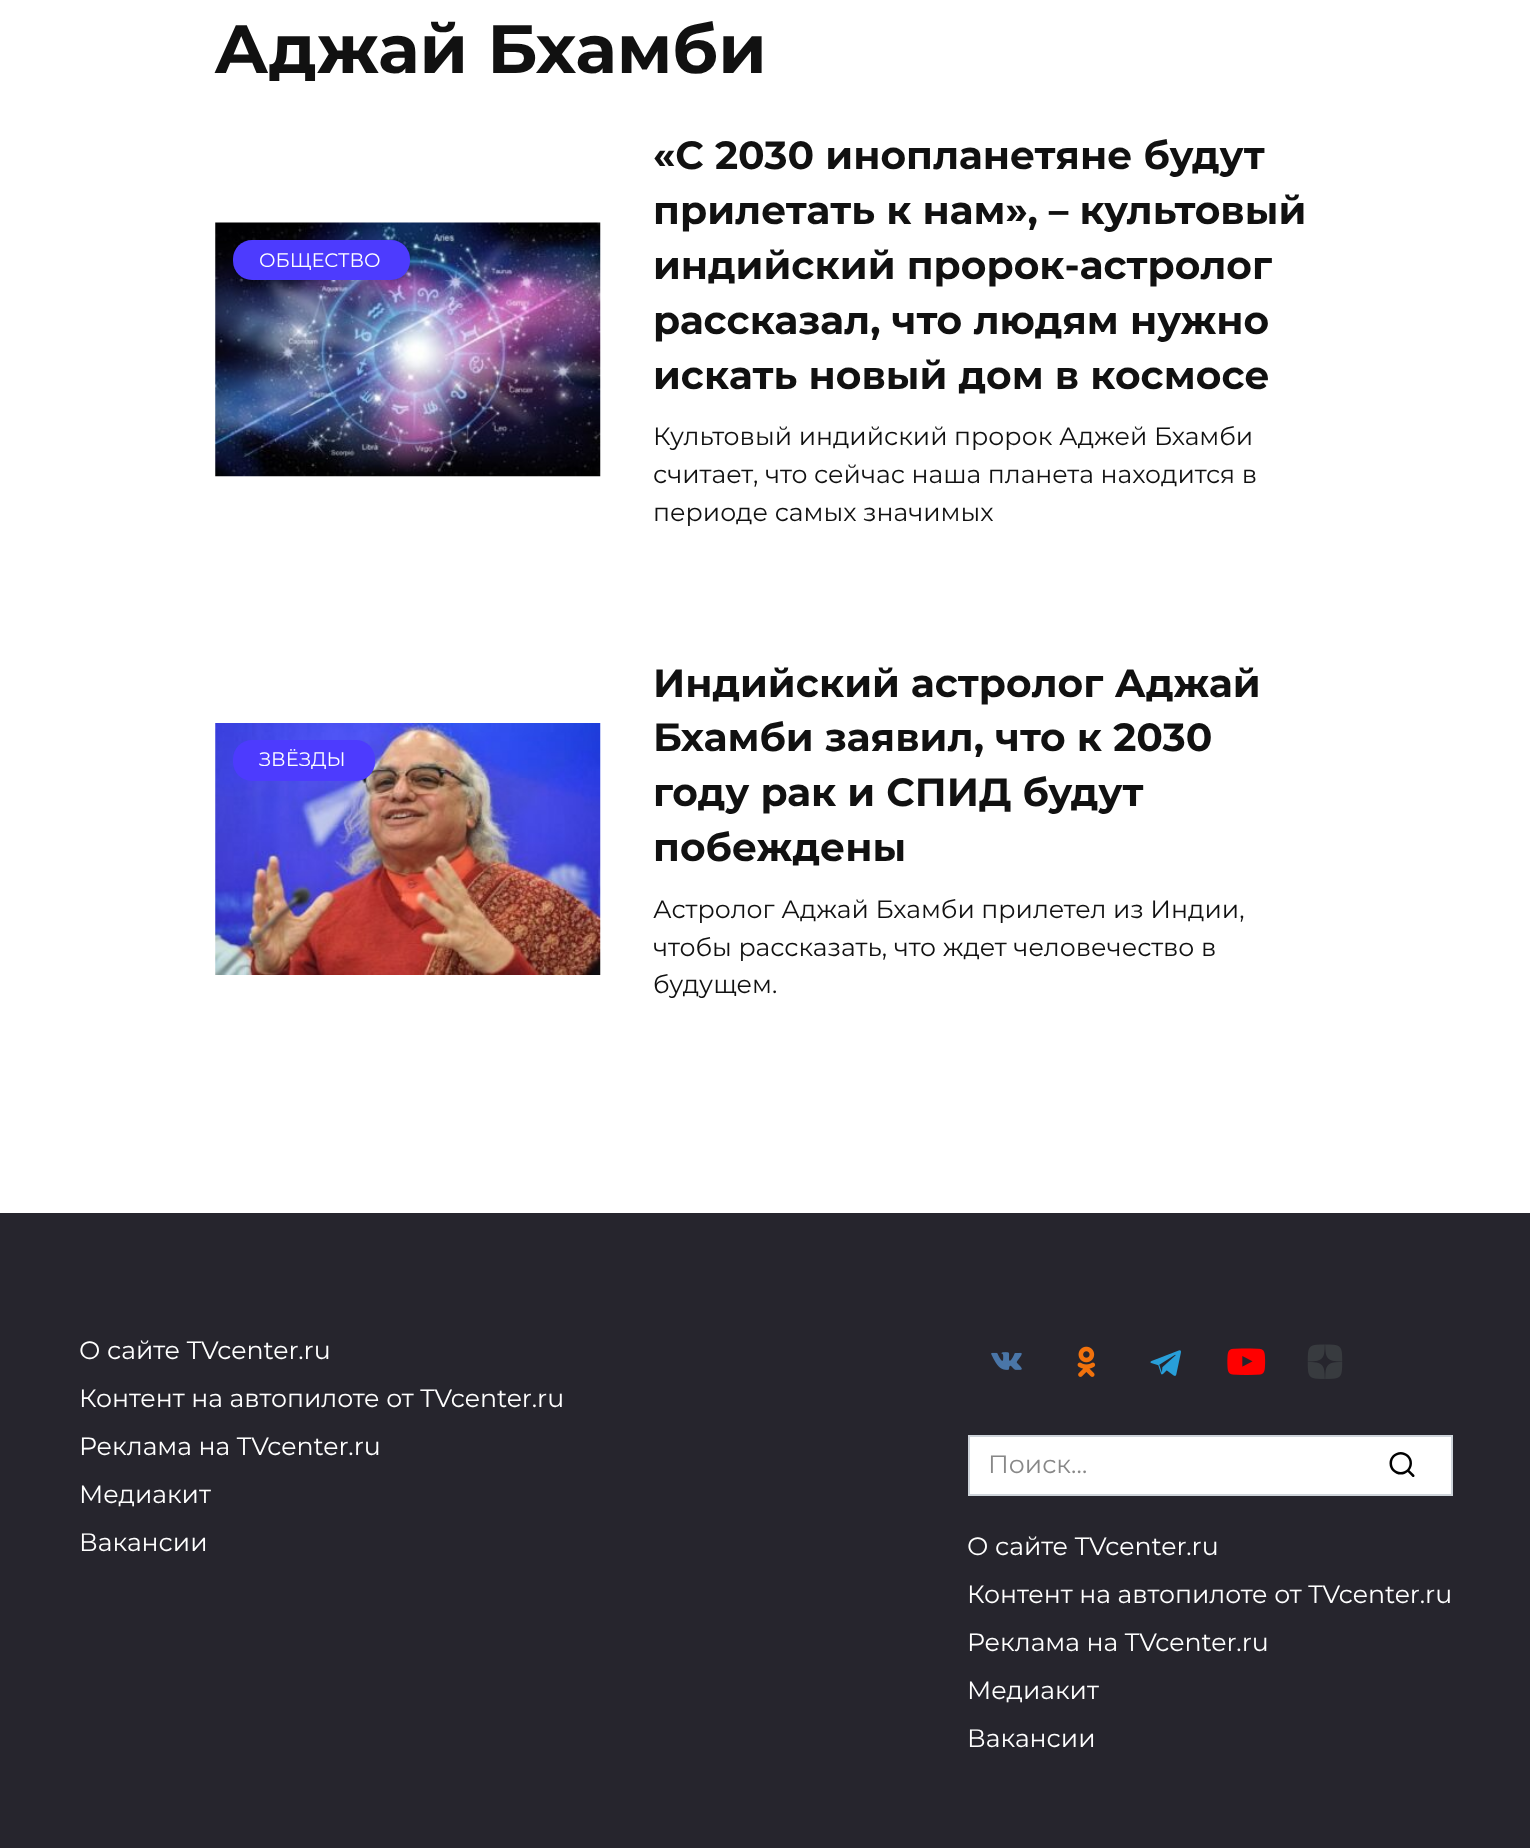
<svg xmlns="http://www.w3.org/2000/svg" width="1530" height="1848">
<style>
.a{font:bold 68.25px Montserrat;fill:#111}
.b{font:19.5px Montserrat;fill:#fff}
.c{font:bold 39.25px Montserrat;fill:#111}
.d{font:25.2px Montserrat;fill:#111}
.e{font:25.2px Montserrat;fill:#fff}
.f{font:25.2px Montserrat;fill:#888}
.g{font:30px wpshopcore;fill:#000}
</style>
<rect width="100%" height="100%" fill="#fff"/>
<image href="1.png" x="215" y="222" width="386" height="255"/>
<rect fill="#4d3bfe" x="233" y="240" width="177" height="40" rx="19"/>
<image href="2.png" x="215" y="723" width="386" height="252"/>
<rect fill="#4d3bfe" x="233" y="740" width="142" height="41" rx="19"/>
<path fill="#26252d" d="M0 1213h1530v635H0z"/>
<image href="3.png" x="991" y="1352" width="31" height="18"/>
<image href="4.png" x="1077" y="1346" width="19" height="31"/>
<image href="5.png" x="1150" y="1350" width="31" height="26"/>
<image href="6.png" x="1227" y="1348" width="39" height="27"/>
<image href="7.png" x="1307" y="1344" width="36" height="35"/>
<path fill="#fff" stroke="#ced4da" stroke-width="2" d="M969 1436h483v59H969z"/>
<text class="a" x="214" y="73">Аджай Бхамби</text>
<text class="b" x="259" y="267">ОБЩЕСТВО</text>
<text class="c" x="653" y="169">«С 2030 инопланетяне будут</text>
<text class="c" x="653" y="224">прилетать к нам», – культовый</text>
<text class="c" x="653" y="279">индийский пророк-астролог</text>
<text class="c" x="653" y="334">рассказал, что людям нужно</text>
<text class="c" x="653" y="389">искать новый дом в космосе</text>
<text class="d" x="653" y="445">Культовый индийский пророк Аджей Бхамби</text>
<text class="d" x="653" y="483">считает, что сейчас наша планета находится в</text>
<text class="d" x="653" y="521">периоде самых значимых</text>
<text class="b" x="259" y="766">ЗВЁЗДЫ</text>
<text class="c" x="653" y="697">Индийский астролог Аджай</text>
<text class="c" x="653" y="751">Бхамби заявил, что к 2030</text>
<text class="c" x="653" y="806">году рак и СПИД будут</text>
<text class="c" x="653" y="861">побеждены</text>
<text class="d" x="653" y="918">Астролог Аджай Бхамби прилетел из Индии,</text>
<text class="d" x="653" y="956">чтобы рассказать, что ждет человечество в</text>
<text class="d" x="653" y="993">будущем.</text>
<text class="e" x="79" y="1359">О сайте TVcenter.ru</text>
<text class="e" x="79" y="1407">Контент на автопилоте от TVcenter.ru</text>
<text class="e" x="79" y="1455">Реклама на TVcenter.ru</text>
<text class="e" x="79" y="1503">Медиакит</text>
<text class="e" x="79" y="1551">Вакансии</text>
<text class="f" x="988" y="1473">Поиск…</text>
<text class="g" x="1387" y="1477">🔍</text>
<text class="e" x="967" y="1555">О сайте TVcenter.ru</text>
<text class="e" x="967" y="1603">Контент на автопилоте от TVcenter.ru</text>
<text class="e" x="967" y="1651">Реклама на TVcenter.ru</text>
<text class="e" x="967" y="1699">Медиакит</text>
<text class="e" x="967" y="1747">Вакансии</text>
</svg>
